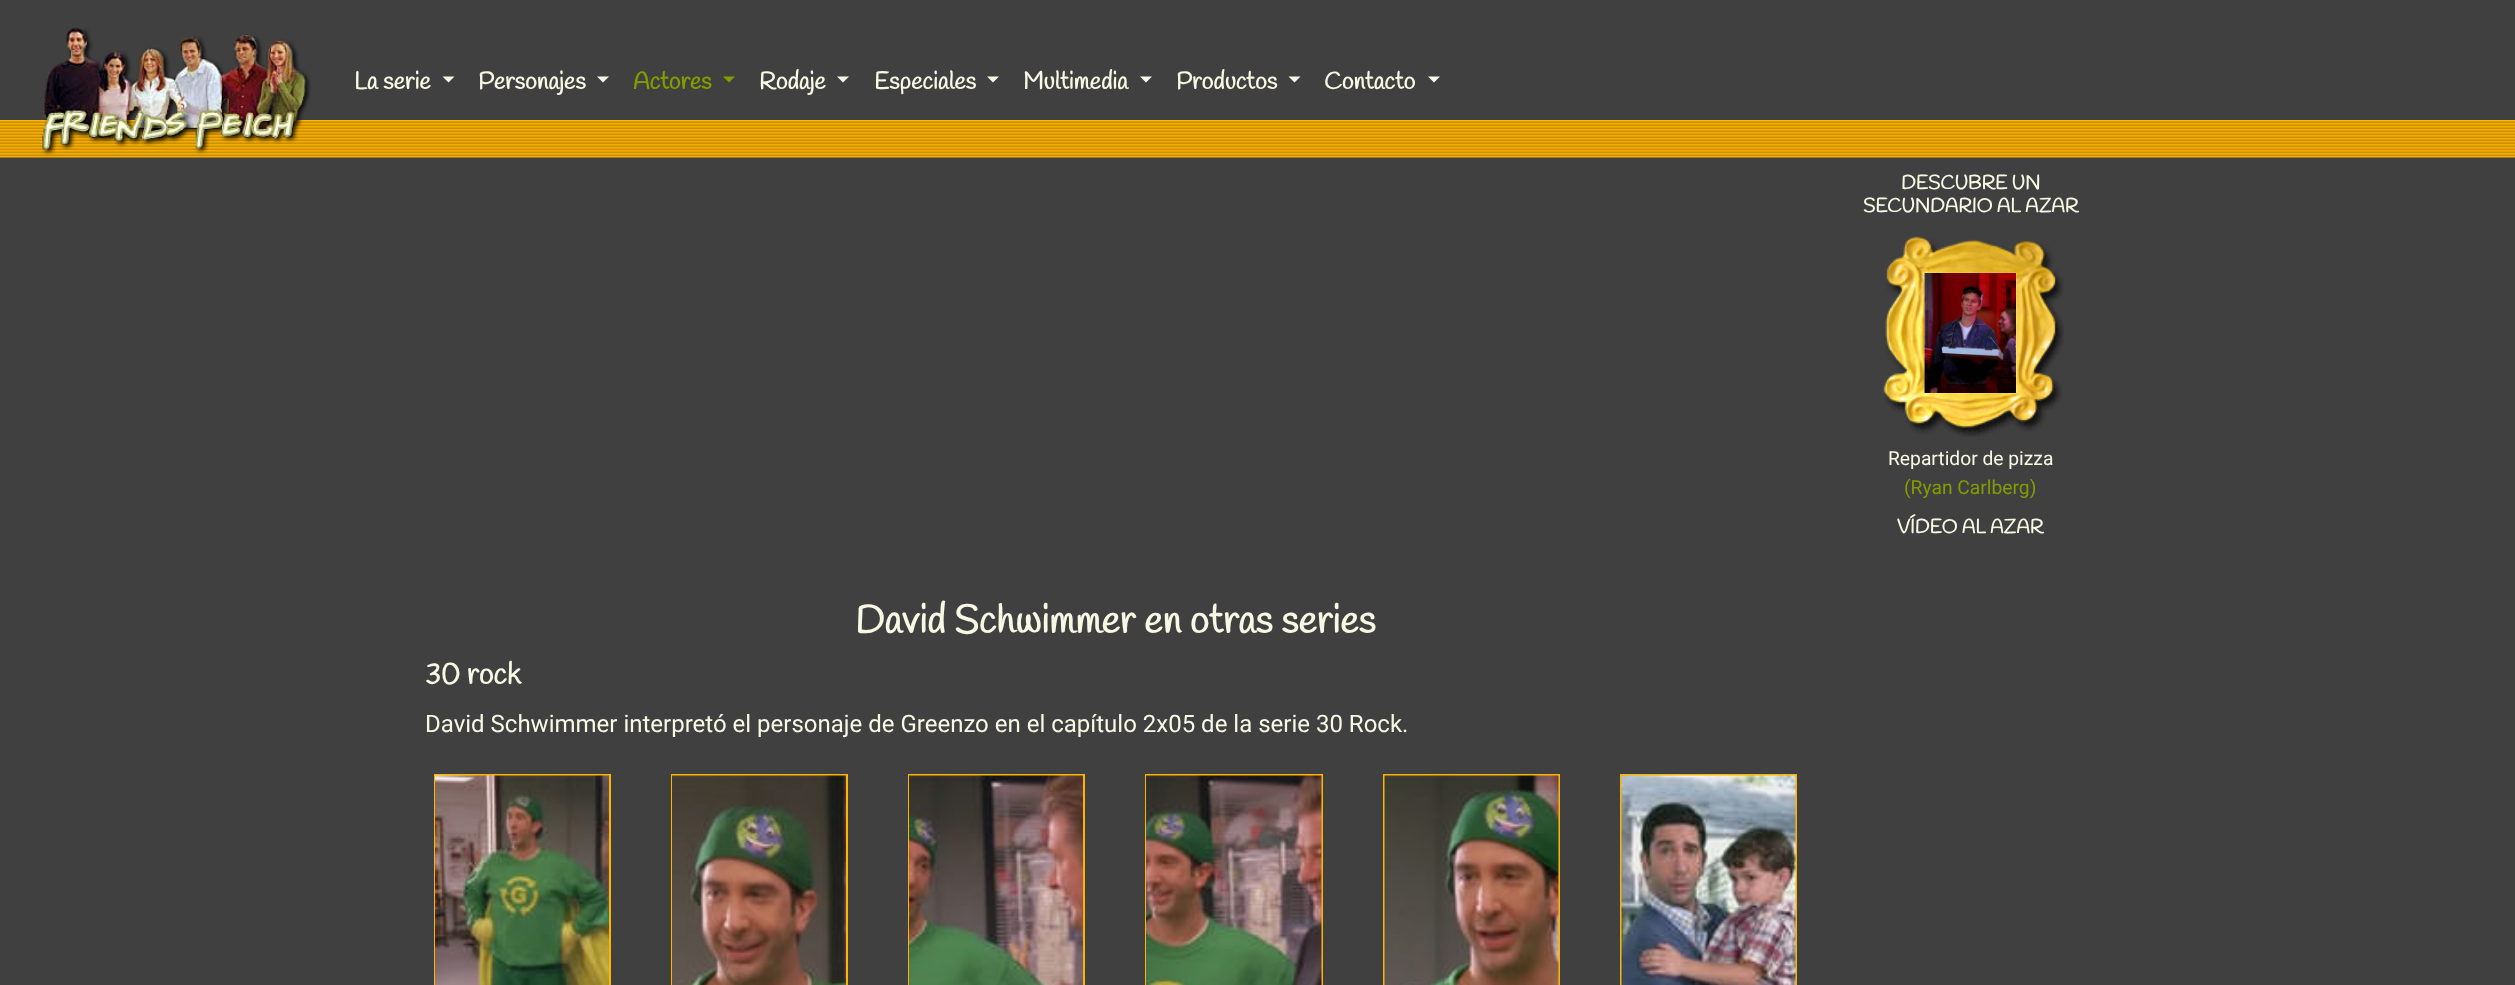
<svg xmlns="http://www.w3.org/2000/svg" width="2515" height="985">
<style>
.a{font:bold 24px Handlee;fill:#f8f9e4}
.b{font:bold 24px Handlee;fill:#849c00}
.c{font:bold 19.5px Handlee;fill:#f8f9e4}
.d{font:19.25px Roboto;fill:#f8f9e4}
.e{font:19.25px Roboto;fill:#849c00}
.f{font:bold 39px Handlee;fill:#f8f9e4}
.g{font:bold 30px Handlee;fill:#f8f9e4}
.h{font:24px Roboto;fill:#f8f9e4}
</style>
<rect width="100%" height="100%" fill="#404040"/>
<image href="1.png" x="0" y="120" width="2515" height="38"/>
<image href="2.png" x="41" y="27" width="270" height="129"/>
<path fill="#f8f9e4" d="M442.5 76.5h12l-6 6z"/>
<path fill="#f8f9e4" d="M597 76.5h12l-6 6z"/>
<path fill="#849c00" d="M723 76.5h12l-6 6z"/>
<path fill="#f8f9e4" d="M837 76.5h12l-6 6z"/>
<path fill="#f8f9e4" d="M987 76.5h12l-6 6z"/>
<path fill="#f8f9e4" d="M1140 76.5h12l-6 6z"/>
<path fill="#f8f9e4" d="M1288.5 76.5h12l-6 6z"/>
<path fill="#f8f9e4" d="M1428 76.5h12l-6 6z"/>
<image href="3.png" x="1883" y="236" width="181" height="201"/>
<image href="4.png" x="1924" y="273" width="92" height="120"/>
<path fill="none" stroke="#ffb400" stroke-width="2" d="M435 775h175v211H435z"/>
<image href="5.png" x="435" y="775" width="174" height="210"/>
<path fill="none" stroke="#ffb400" stroke-width="2" d="M672 775h175v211H672z"/>
<image href="6.png" x="672" y="775" width="174" height="210"/>
<path fill="none" stroke="#ffb400" stroke-width="2" d="M909 775h175v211H909z"/>
<image href="7.png" x="909" y="775" width="174" height="210"/>
<path fill="none" stroke="#ffb400" stroke-width="2" d="M1146 775h176v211H1146z"/>
<image href="8.png" x="1146" y="775" width="176" height="210"/>
<path fill="none" stroke="#ffb400" stroke-width="2" d="M1384 775h175v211H1384z"/>
<image href="9.png" x="1384" y="775" width="175" height="210"/>
<path fill="none" stroke="#ffb400" stroke-width="2" d="M1621 775h175v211H1621z"/>
<image href="10.png" x="1621" y="775" width="175" height="210"/>
<text class="a" x="354" y="89">La serie</text>
<text class="a" x="478" y="89">Personajes</text>
<text class="b" x="633" y="89">Actores</text>
<text class="a" x="759" y="89">Rodaje</text>
<text class="a" x="874" y="89">Especiales</text>
<text class="a" x="1023" y="89">Multimedia</text>
<text class="a" x="1176" y="89">Productos</text>
<text class="a" x="1324" y="89">Contacto</text>
<text class="c" x="1901" y="189">DESCUBRE UN</text>
<text class="c" x="1863" y="212">SECUNDARIO AL AZAR</text>
<text class="d" x="1888" y="465">Repartidor de pizza</text>
<text class="e" x="1904" y="494">(Ryan Carlberg)</text>
<text class="c" x="1897" y="533">VÍDEO AL AZAR</text>
<text class="f" x="855" y="633">David Schwimmer en otras series</text>
<text class="g" x="425" y="684">30 rock</text>
<text class="h" x="425" y="732">David Schwimmer interpretó el personaje de Greenzo en el capítulo 2x05 de la serie 30 Rock.</text>
</svg>
